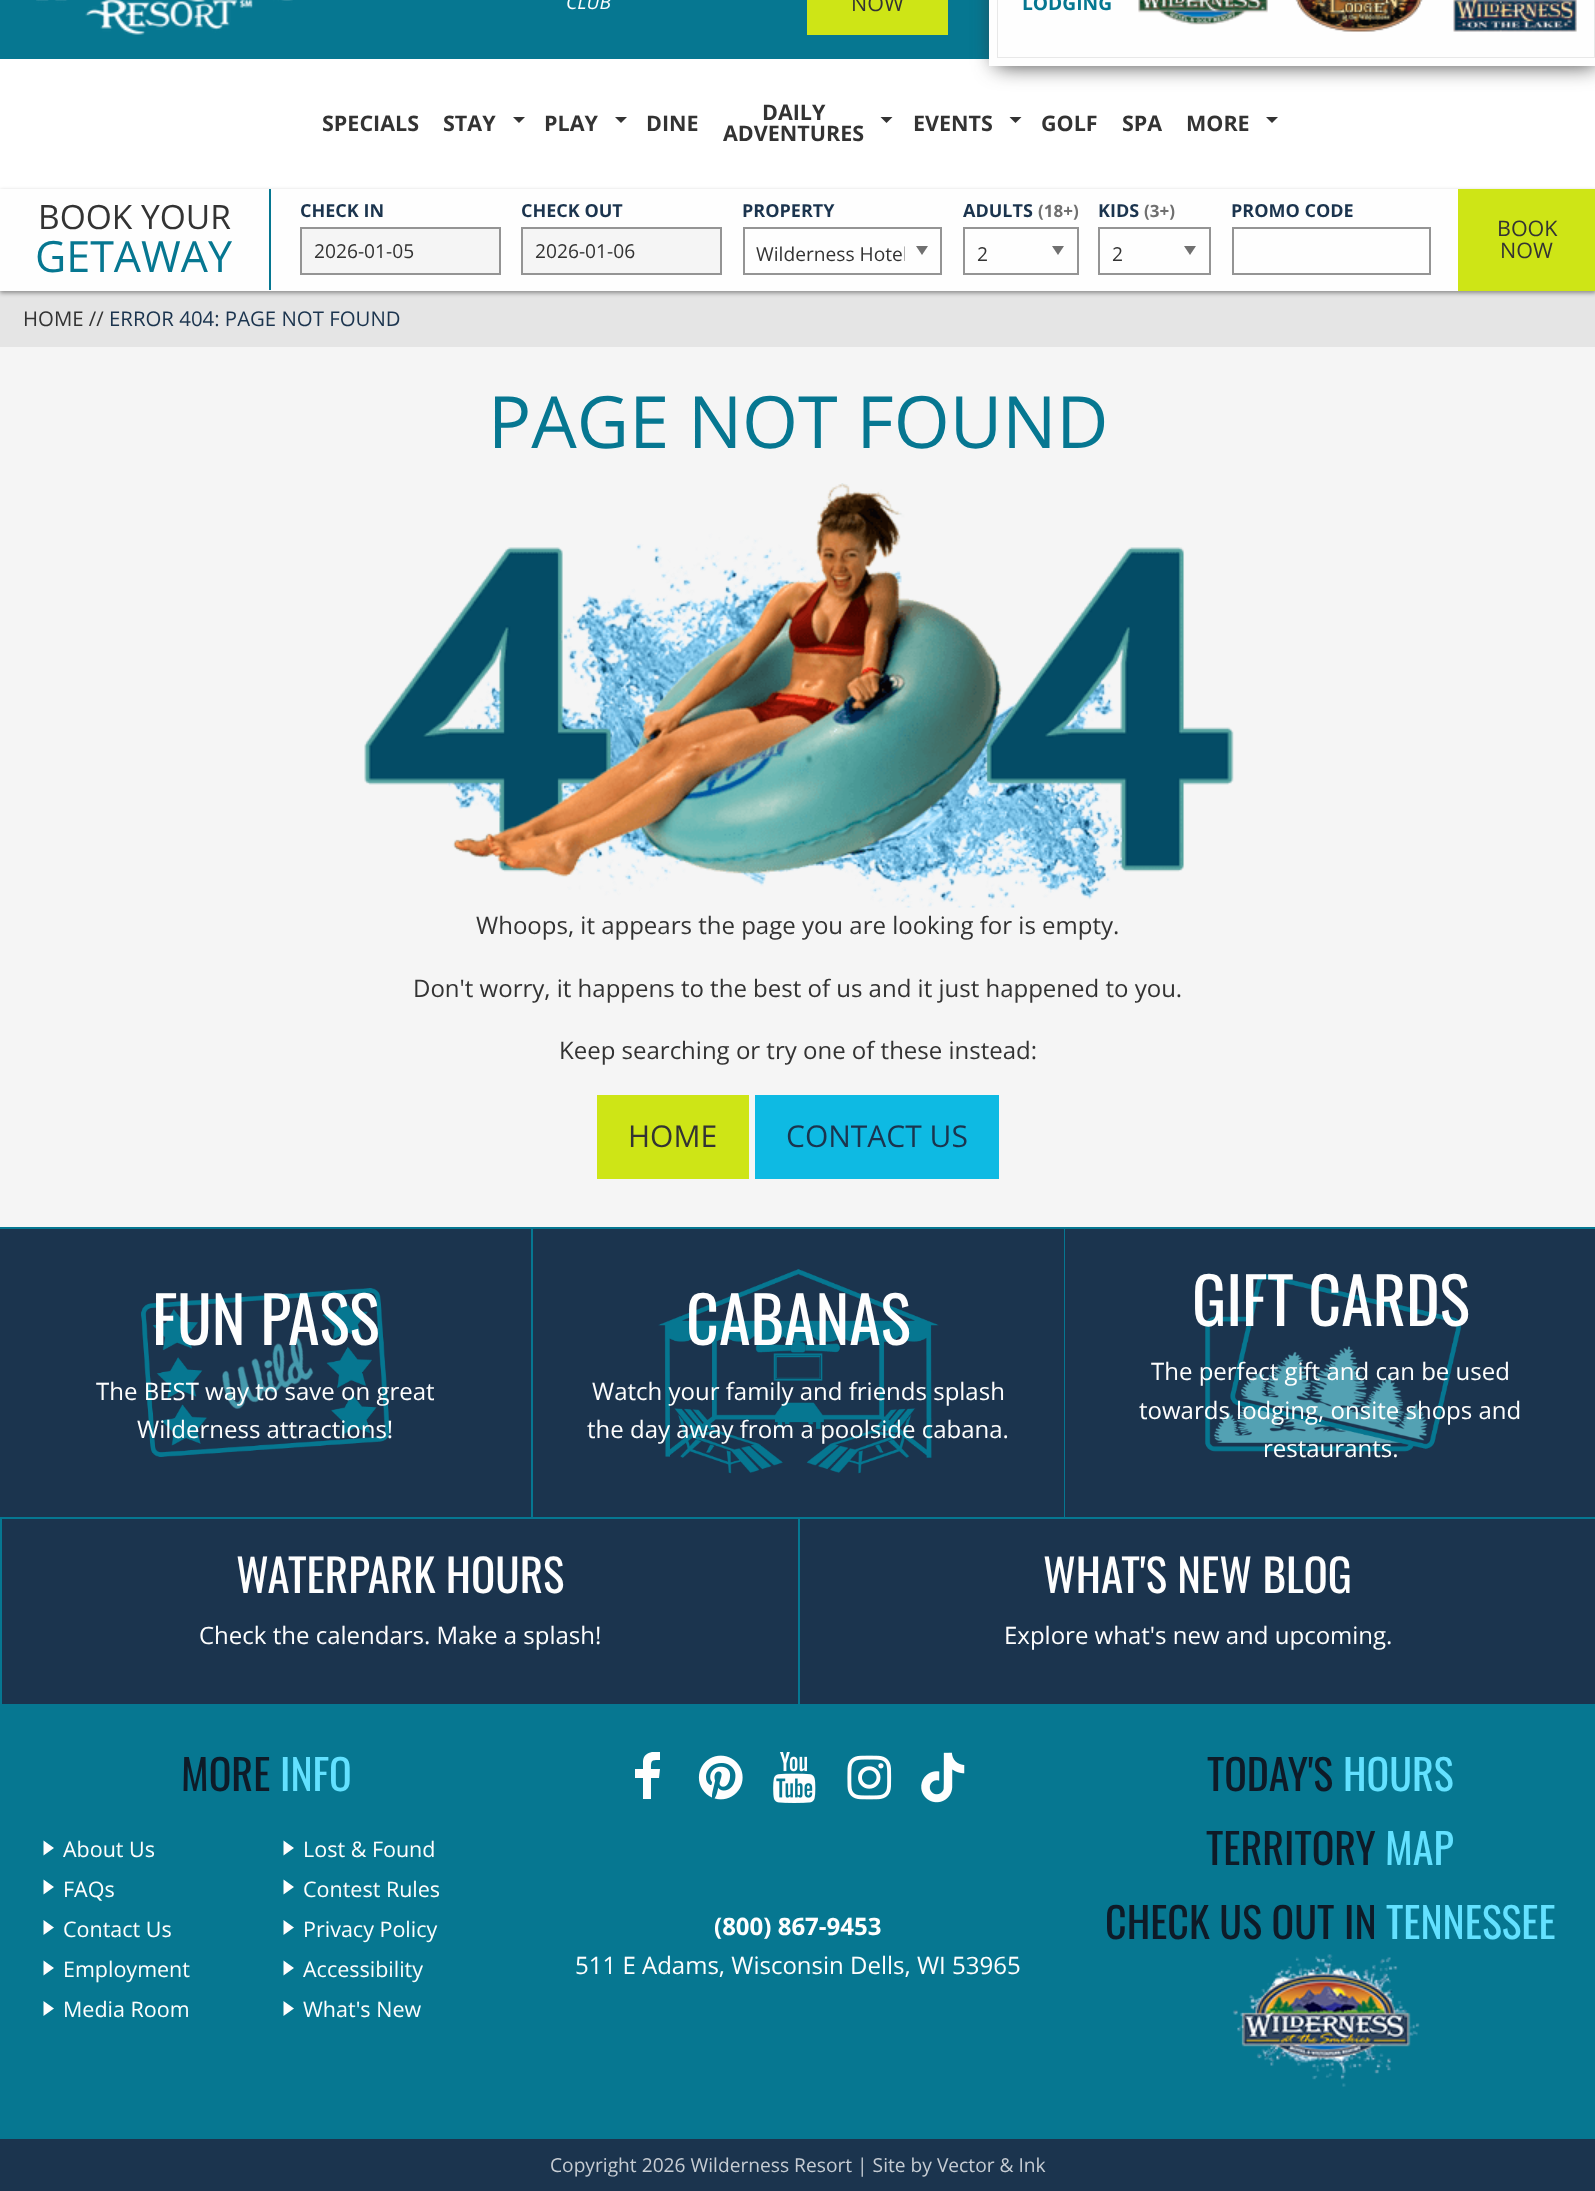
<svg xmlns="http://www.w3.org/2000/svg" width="1595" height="2191">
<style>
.a{font:italic 19.2px Open Sans;fill:#fefefe}
.b{font:21.5px Open Sans;fill:#333}
.c{font:bold 19.2px Open Sans;fill:#067791}
.d{font:bold 21.5px Open Sans;fill:#333}
.e{font:33.5px Open Sans;fill:#333}
.f{font:43px Open Sans;fill:#067791}
.g{font:bold 18px Open Sans;fill:#1b344e}
.h{font:19.2px Open Sans;fill:#333}
.i{font:bold 17px Open Sans;fill:#707070}
.j{font:20.4px Open Sans;fill:#333}
.k{font:20.4px Open Sans;fill:#1b344e}
.l{font:72px Open Sans;fill:#067791}
.m{font:24px Open Sans;fill:#333}
.n{font:30px Open Sans;fill:#333}
.o{font:30px Open Sans;fill:#1b344e}
.p{font:64px Oswald;fill:#fefefe}
.q{font:24px Open Sans;fill:#fefefe}
.r{font:45px Oswald;fill:#fefefe}
.s{font:42px Oswald;fill:#0e1b28}
.t{font:42px Oswald;fill:#63e1ff}
.u{font:21.5px Open Sans;fill:#fefefe}
.v{font:bold 24px Open Sans;fill:#fefefe}
.w{font:19.2px Open Sans;fill:#c6ccd3}
</style>
<defs>
<clipPath id="clip1"><path d="M623 1752h49v51H623z"/></clipPath>
<clipPath id="clip2"><path d="M756 240h149v27H756z"/></clipPath>
</defs>
<rect width="100%" height="100%" fill="#fff"/>
<path fill="#067791" d="M0 0h989v59H0z"/>
<image href="1.png" x="36" y="0" width="257" height="35"/>
<path fill="#cee516" d="M807 0h141v35H807z"/>
<path fill="#333" filter="blur(11px)" d="M996 -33h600v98H996z"/>
<path fill="#fefefe" stroke="#e8e8e8" stroke-width="2" d="M997 -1h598v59H997z"/>
<image href="2.png" x="1138" y="0" width="130" height="25"/>
<image href="3.png" x="1295" y="0" width="128" height="32"/>
<image href="4.png" x="1453" y="0" width="124" height="32"/>
<path fill="none" stroke="#fefefe" stroke-width="8" d="M993 -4h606v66H993z"/>
<path fill="#333" d="M513 117h12l-6 6z"/>
<path fill="#333" d="M615 117h12l-6 6z"/>
<path fill="#333" d="M880.5 117h12l-6 6z"/>
<path fill="#333" d="M1009.5 117h12l-6 6z"/>
<path fill="#333" d="M1266 117h12l-6 6z"/>
<path fill="#e5e5e5" d="M0 291h1595v56H0z"/>
<path fill="#33333380" filter="blur(2px)" d="M0 191h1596v102H0z"/>
<path fill="#fefefe" d="M0 189h1458v102H0z"/>
<path fill="#067791" d="M269 189h2v101H269z"/>
<path fill="#f5f5f5" stroke="#949494" stroke-width="2" d="M301 228h199v46H301z"/>
<path fill="#f5f5f5" stroke="#949494" stroke-width="2" d="M522 228h199v46H522z"/>
<path fill="#707070" d="M916 246h12l-6 9z"/>
<path fill="none" stroke="#949494" stroke-width="2" d="M744 228h197v46H744z"/>
<path fill="#707070" d="M1052 246h12l-6 9z"/>
<path fill="none" stroke="#949494" stroke-width="2" d="M964 228h114v46H964z"/>
<path fill="#707070" d="M1184 246h12l-6 9z"/>
<path fill="none" stroke="#949494" stroke-width="2" d="M1099 228h111v46H1099z"/>
<path fill="none" stroke="#949494" stroke-width="2" d="M1233 228h197v46H1233z"/>
<path fill="#cee516" d="M1458 189h137v102H1458z"/>
<path fill="#f5f5f5" d="M0 347h1595v880H0z"/>
<image href="5.png" x="364" y="483" width="870" height="425"/>
<path fill="#cee516" d="M597 1095h152v84H597z"/>
<path fill="#0ebae3" d="M755 1095h244v84H755z"/>
<path fill="#1b344e" d="M0 1229h1595v475H0z"/>
<image href="6.png" x="141" y="1288" width="249" height="169"/>
<path fill="#067791" d="M0 1227h1595v2H0z"/>
<image href="7.png" x="658" y="1269" width="281" height="205"/>
<path fill="#067791" d="M1064 1227h1v290H1064z"/>
<path fill="#067791" d="M531 1227h2v290H531z"/>
<image href="8.png" x="1205" y="1274" width="256" height="178"/>
<path fill="#067791" d="M0 1517h1595v2H0z"/>
<path fill="#067791" d="M0 1517h2v187H0z"/>
<path fill="#067791" d="M798 1517h2v187H798z"/>
<path fill="#067791" d="M0 1704h1595v435H0z"/>
<path fill="#fefefe" d="M43.5 1855.5v-15l10.5 7.5z"/>
<path fill="#fefefe" d="M283.5 1855.5v-15l10.5 7.5z"/>
<path fill="#fefefe" d="M43.5 1894.5v-15l10.5 7.5z"/>
<path fill="#fefefe" d="M283.5 1894.5v-15l10.5 7.5z"/>
<path fill="#fefefe" d="M43.5 1935v-15l10.5 7.5z"/>
<path fill="#fefefe" d="M283.5 1935v-15l10.5 7.5z"/>
<path fill="#fefefe" d="M43.5 1975.5v-15l10.5 7.5z"/>
<path fill="#fefefe" d="M283.5 1975.5v-15l10.5 7.5z"/>
<path fill="#fefefe" d="M43.5 2016v-15l10.5 7.5z"/>
<path fill="#fefefe" d="M283.5 2016v-15l10.5 7.5z"/>
<image href="9.png" x="1232" y="1954" width="188" height="133"/>
<g clip-path="url(#clip1)">
<path fill="#fefefe" d="M660 1752v8c-9 0-9 0-9 9h9l-1 9h-8v21h-8v-21h-8v-9h8v-8c1-9 10-10 17-9z"/>
</g>
<image href="10.png" x="698" y="1755" width="45" height="45"/>
<image href="11.png" x="773" y="1752" width="43" height="51"/>
<image href="12.png" x="847" y="1755" width="45" height="45"/>
<image href="13.png" x="921" y="1752" width="44" height="51"/>
<path fill="#1b344e" d="M0 2139h1595v52H0z"/>
<text class="a" x="566" y="9">CLUB</text>
<text class="b" x="851" y="11">NOW</text>
<text class="c" x="1022" y="10">LODGING</text>
<text class="d" x="322" y="131">SPECIALS</text>
<text class="d" x="443" y="131">STAY</text>
<text class="d" x="544" y="131">PLAY</text>
<text class="d" x="646" y="131">DINE</text>
<text class="d" x="762" y="120">DAILY</text>
<text class="d" x="723" y="141">ADVENTURES</text>
<text class="d" x="913" y="131">EVENTS</text>
<text class="d" x="1041" y="131">GOLF</text>
<text class="d" x="1122" y="131">SPA</text>
<text class="d" x="1186" y="131">MORE</text>
<text class="e" x="38" y="229">BOOK YOUR</text>
<text class="f" x="35" y="272">GETAWAY</text>
<text class="g" x="300" y="217">CHECK IN</text>
<text class="h" x="314" y="258">2026-01-05</text>
<text class="g" x="521" y="217">CHECK OUT</text>
<text class="h" x="535" y="258">2026-01-06</text>
<text class="g" x="742" y="217">PROPERTY</text>
<g clip-path="url(#clip2)">
<text class="h" x="756" y="261">Wilderness Hotel</text>
</g>
<text class="g" x="963" y="217">ADULTS</text>
<text class="i" x="1038" y="217">(18+)</text>
<text class="h" x="977" y="261">2</text>
<text class="g" x="1098" y="217">KIDS</text>
<text class="i" x="1144" y="217">(3+)</text>
<text class="h" x="1112" y="261">2</text>
<text class="g" x="1231" y="217">PROMO CODE</text>
<text class="b" x="1497" y="236">BOOK</text>
<text class="b" x="1500" y="258">NOW</text>
<text class="j" x="23" y="326">HOME //</text>
<text class="k" x="109" y="326">ERROR 404: PAGE NOT FOUND</text>
<text class="l" x="488" y="448">PAGE NOT FOUND</text>
<text class="m" x="476" y="934">Whoops, it appears the page you are looking for is empty.</text>
<text class="m" x="413" y="997">Don't worry, it happens to the best of us and it just happened to you.</text>
<text class="m" x="559" y="1059">Keep searching or try one of these instead:</text>
<text class="n" x="628" y="1147">HOME</text>
<text class="o" x="786" y="1147">CONTACT US</text>
<text class="p" x="152" y="1345">FUN PASS</text>
<text class="q" x="96" y="1400">The BEST way to save on great</text>
<text class="q" x="137" y="1438">Wilderness attractions!</text>
<text class="p" x="686" y="1345">CABANAS</text>
<text class="q" x="592" y="1400">Watch your family and friends splash</text>
<text class="q" x="587" y="1438">the day away from a poolside cabana.</text>
<text class="p" x="1192" y="1326">GIFT CARDS</text>
<text class="q" x="1151" y="1380">The perfect gift and can be used</text>
<text class="q" x="1139" y="1419">towards lodging, onsite shops and</text>
<text class="q" x="1263" y="1457">restaurants.</text>
<text class="r" x="236" y="1593">WATERPARK HOURS</text>
<text class="q" x="199" y="1644">Check the calendars. Make a splash!</text>
<text class="r" x="1043" y="1593">WHAT'S NEW BLOG</text>
<text class="q" x="1004" y="1644">Explore what's new and upcoming.</text>
<text class="s" x="181" y="1791">MORE</text>
<text class="t" x="280" y="1791">INFO</text>
<text class="u" x="63" y="1857">About Us</text>
<text class="u" x="303" y="1857">Lost &amp; Found</text>
<text class="u" x="63" y="1897">FAQs</text>
<text class="u" x="303" y="1897">Contest Rules</text>
<text class="u" x="63" y="1937">Contact Us</text>
<text class="u" x="303" y="1937">Privacy Policy</text>
<text class="u" x="63" y="1977">Employment</text>
<text class="u" x="303" y="1977">Accessibility</text>
<text class="u" x="63" y="2017">Media Room</text>
<text class="u" x="303" y="2017">What's New</text>
<text class="s" x="1207" y="1791">TODAY'S</text>
<text class="t" x="1343" y="1791">HOURS</text>
<text class="s" x="1206" y="1865">TERRITORY</text>
<text class="t" x="1385" y="1865">MAP</text>
<text class="s" x="1105" y="1939">CHECK US OUT IN</text>
<text class="t" x="1386" y="1939">TENNESSEE</text>
<text class="v" x="714" y="1935">(800) 867-9453</text>
<text class="q" x="575" y="1974">511 E Adams, Wisconsin Dells, WI 53965</text>
<text class="w" x="550" y="2172">Copyright 2026 Wilderness Resort | Site by Vector &amp; Ink</text>
</svg>
